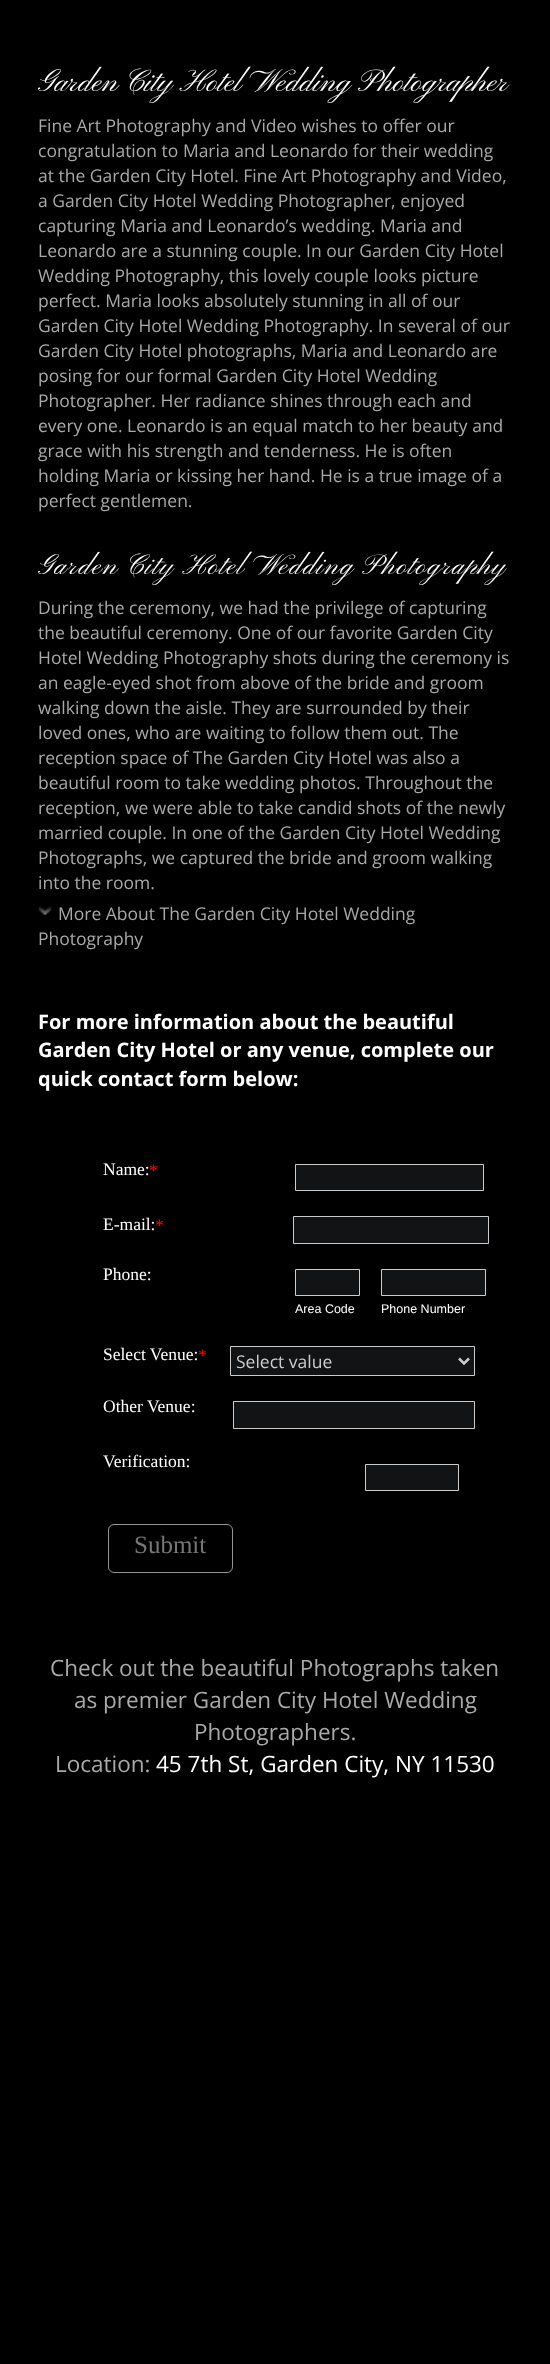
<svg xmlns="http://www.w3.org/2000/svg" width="550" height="2364">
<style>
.a{font:31.25px Pinyon Script;fill:#fff}
.b{font:17.5px Open Sans;fill:#aaa9a9}
.c{font:28.5px Pinyon Script;letter-spacing:1.25px;fill:#fff}
.d{font:bold 20px Open Sans;fill:#fff}
.e{font:17.5px Liberation Serif;fill:#fff}
.f{font:17.5px Liberation Serif;fill:#f00}
.g{font:12.5px Liberation Sans;fill:#fff}
.h{font:17.5px Open Sans;fill:#ccc}
.i{font:25px Liberation Serif;fill:#767676}
.j{font:22.5px Open Sans;fill:#aaa9a9}
.k{font:22.5px Open Sans;fill:#fff}
</style>
<rect width="100%" height="100%" fill="#000"/>
<image href="1.png" x="38" y="906" width="14" height="9"/>
<path fill="#121314" stroke="#ccc" d="M295.5 1164.5h188v26H295.5z"/>
<path fill="#121314" stroke="#ccc" d="M293.5 1216.5h195v27H293.5z"/>
<path fill="#121314" stroke="#ccc" d="M295.5 1269.5h64v26H295.5z"/>
<path fill="#121314" stroke="#ccc" d="M381.5 1269.5h104v26H381.5z"/>
<path fill="#121314" stroke="#ccc" d="M230.5 1346.5h244v29H230.5z"/>
<path fill="none" stroke="#ccc" stroke-width="2.5" d="M459 1358.5l5 5l5-5"/>
<path fill="#121314" stroke="#ccc" d="M233.5 1401.5h241v27H233.5z"/>
<path fill="#121314" stroke="#ccc" d="M365.5 1464.5h93v26H365.5z"/>
<rect fill="none" stroke="#959595" x="108.5" y="1524.5" width="124" height="48" rx="5.5"/>
<text class="a" x="38" y="91">Garden City Hotel Wedding Photographer</text>
<text class="b" x="38" y="132">Fine Art Photography and Video wishes to offer our</text>
<text class="b" x="38" y="157">congratulation to Maria and Leonardo for their wedding</text>
<text class="b" x="38" y="182">at the Garden City Hotel. Fine Art Photography and Video,</text>
<text class="b" x="38" y="207">a Garden City Hotel Wedding Photographer, enjoyed</text>
<text class="b" x="38" y="232">capturing Maria and Leonardo’s wedding. Maria and</text>
<text class="b" x="38" y="257">Leonardo are a stunning couple. In our Garden City Hotel</text>
<text class="b" x="38" y="282">Wedding Photography, this lovely couple looks picture</text>
<text class="b" x="38" y="307">perfect. Maria looks absolutely stunning in all of our</text>
<text class="b" x="38" y="332">Garden City Hotel Wedding Photography. In several of our</text>
<text class="b" x="38" y="357">Garden City Hotel photographs, Maria and Leonardo are</text>
<text class="b" x="38" y="382">posing for our formal Garden City Hotel Wedding</text>
<text class="b" x="38" y="407">Photographer. Her radiance shines through each and</text>
<text class="b" x="38" y="432">every one. Leonardo is an equal match to her beauty and</text>
<text class="b" x="38" y="457">grace with his strength and tenderness. He is often</text>
<text class="b" x="38" y="482">holding Maria or kissing her hand. He is a true image of a</text>
<text class="b" x="38" y="507">perfect gentlemen.</text>
<text class="c" x="38" y="574">Garden City Hotel Wedding Photography</text>
<text class="b" x="38" y="614">During the ceremony, we had the privilege of capturing</text>
<text class="b" x="38" y="639">the beautiful ceremony. One of our favorite Garden City</text>
<text class="b" x="38" y="664">Hotel Wedding Photography shots during the ceremony is</text>
<text class="b" x="38" y="689">an eagle-eyed shot from above of the bride and groom</text>
<text class="b" x="38" y="714">walking down the aisle. They are surrounded by their</text>
<text class="b" x="38" y="739">loved ones, who are waiting to follow them out. The</text>
<text class="b" x="38" y="764">reception space of The Garden City Hotel was also a</text>
<text class="b" x="38" y="789">beautiful room to take wedding photos. Throughout the</text>
<text class="b" x="38" y="814">reception, we were able to take candid shots of the newly</text>
<text class="b" x="38" y="839">married couple. In one of the Garden City Hotel Wedding</text>
<text class="b" x="38" y="864">Photographs, we captured the bride and groom walking</text>
<text class="b" x="38" y="889">into the room.</text>
<text class="b" x="58" y="920">More About The Garden City Hotel Wedding</text>
<text class="b" x="38" y="945">Photography</text>
<text class="d" x="38" y="1029">For more information about the beautiful</text>
<text class="d" x="38" y="1057">Garden City Hotel or any venue, complete our</text>
<text class="d" x="38" y="1086">quick contact form below:</text>
<text class="e" x="103" y="1175">Name:</text>
<text class="f" x="149" y="1176">*</text>
<text class="e" x="103" y="1230">E-mail:</text>
<text class="f" x="155" y="1231">*</text>
<text class="e" x="103" y="1280">Phone:</text>
<text class="g" x="295" y="1313">Area Code</text>
<text class="g" x="381" y="1313">Phone Number</text>
<text class="e" x="103" y="1360">Select Venue:</text>
<text class="f" x="198" y="1361">*</text>
<text class="h" x="236" y="1368">Select value</text>
<text class="e" x="103" y="1412">Other Venue:</text>
<text class="e" x="103" y="1467">Verification:</text>
<text class="i" x="134" y="1553">Submit</text>
<text class="j" x="50" y="1676">Check out the beautiful Photographs taken</text>
<text class="j" x="74" y="1708">as premier Garden City Hotel Wedding</text>
<text class="j" x="194" y="1740">Photographers.</text>
<text class="j" x="55" y="1772">Location:</text>
<text class="k" x="156" y="1772">45 7th St, Garden City, NY 11530</text>
</svg>
